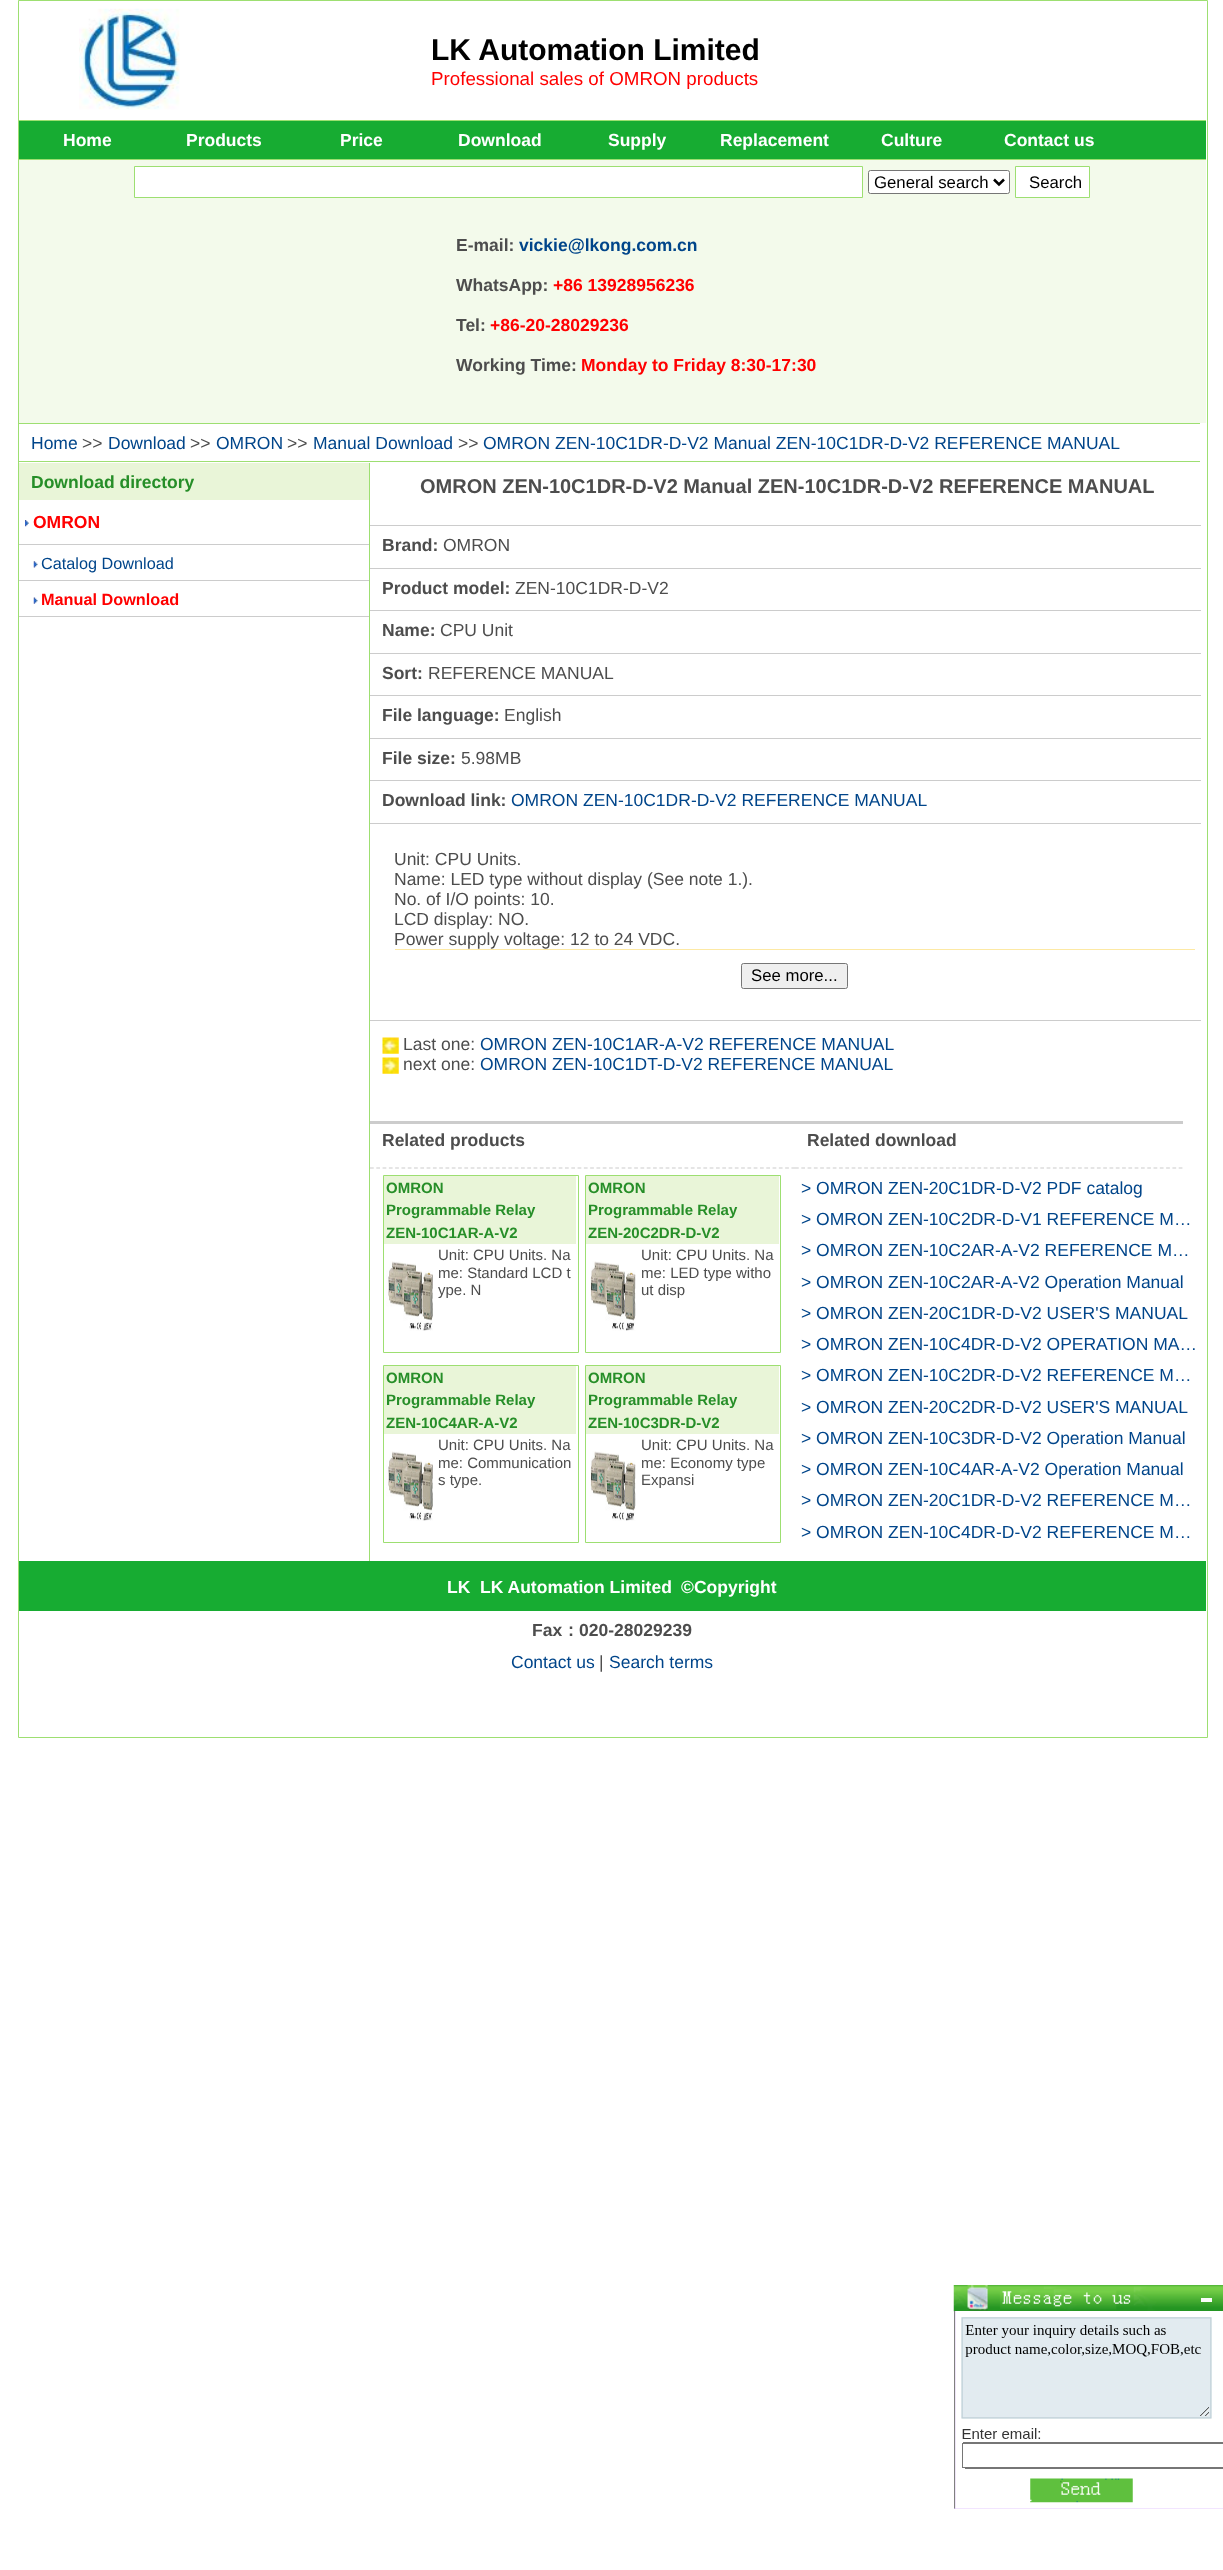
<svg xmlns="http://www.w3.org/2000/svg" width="1223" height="2570">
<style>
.a{font:bold 30px Liberation Sans;fill:#000}
.b{font:18.75px Liberation Sans;fill:#f00}
.c{font:bold 17.5px Liberation Sans;fill:#fff}
.d{font:16.75px Liberation Sans;fill:#000}
.e{font:bold 17.5px Liberation Sans;fill:#4d4d4d}
.f{font:bold 17.5px Liberation Sans;fill:#00458a}
.g{font:bold 17.5px Liberation Sans;fill:#f00}
.h{font:17.5px Liberation Sans;fill:#00458a}
.i{font:17.5px Liberation Sans;fill:#4d4d4d}
.j{font:bold 17.5px Liberation Sans;fill:#268e28}
.k{font:16.25px Liberation Sans;fill:#00458a}
.l{font:bold 16.25px Liberation Sans;fill:#f00}
.m{font:bold 20px Liberation Sans;fill:#4d4d4d}
.n{font:bold 15px Liberation Sans;fill:#268e28}
.o{font:15px Liberation Sans;fill:#4d4d4d}
.p{font:bold 17.5px WenQuanYi Zen Hei;fill:#4d4d4d}
</style>
<rect width="100%" height="100%" fill="#fff"/>
<path fill="none" stroke="#9ddf71" d="M18.5 0.5h1189v1737H18.5z"/>
<path fill="#9ddf71" d="M19 120h1187v1H19z"/>
<image href="1.png" x="79" y="8" width="101" height="102"/>
<path fill="#17ac32" d="M19 121h1187v38H19z"/>
<path fill="#f3faeb" d="M19 160h1187v263H19z"/>
<path fill="#9ddf71" d="M19 159h1187v1H19z"/>
<path fill="#fff" stroke="#9ddf71" d="M134.5 166.5h728v31H134.5z"/>
<rect fill="#fff" stroke="#767676" x="868.5" y="170.5" width="141" height="23" rx="2"/>
<path fill="none" stroke="#000" stroke-width="2.5" d="M994 179.5l5 5l5-5"/>
<path fill="#fff" stroke="#9ddf71" d="M1015.5 166.5h74v31H1015.5z"/>
<path fill="#9ddf71" d="M19 423h1181v1H19z"/>
<path fill="#9ddf71" d="M19 461h1181v1H19z"/>
<path fill="#e9f5d8" d="M19 463h350v37H19z"/>
<path fill="#ccc" d="M19 544h350v1H19z"/>
<image href="2.png" x="25" y="520" width="4" height="7"/>
<path fill="#ccc" d="M19 580h350v1H19z"/>
<image href="3.png" x="33" y="561" width="5" height="7"/>
<path fill="#ccc" d="M19 616h350v1H19z"/>
<image href="4.png" x="33" y="597" width="5" height="7"/>
<path fill="#9ddf71" d="M369 463h1v1098H369z"/>
<path fill="#ccc" d="M370 525h831v1H370z"/>
<path fill="#ccc" d="M370 568h831v1H370z"/>
<path fill="#ccc" d="M370 610h831v1H370z"/>
<path fill="#ccc" d="M370 653h831v1H370z"/>
<path fill="#ccc" d="M370 695h831v1H370z"/>
<path fill="#ccc" d="M370 738h831v1H370z"/>
<path fill="#ccc" d="M370 780h831v1H370z"/>
<path fill="#ccc" d="M370 823h831v1H370z"/>
<path fill="#fde9a4" d="M395 949h800v1H395z"/>
<rect fill="#efefef" stroke="#767676" x="741.5" y="963.5" width="106" height="25" rx="2"/>
<path fill="#ccc" d="M370 1020h831v1H370z"/>
<image href="5.png" x="382" y="1037" width="17" height="17"/>
<image href="6.png" x="382" y="1057" width="17" height="17"/>
<path fill="#ccc" d="M370 1121h813v3H370z"/>
<path fill="none" stroke="#ccc" stroke-width="1.2" stroke-dasharray="3.75 2.54" d="M370 1168h425"/>
<path fill="none" stroke="#9ddf71" d="M383.5 1175.5h195v177H383.5z"/>
<path fill="#e9f5d8" d="M384 1176h192v68H384z"/>
<image href="7.png" x="386" y="1261" width="47" height="70"/>
<path fill="none" stroke="#9ddf71" d="M585.5 1175.5h195v177H585.5z"/>
<path fill="#e9f5d8" d="M586 1176h193v68H586z"/>
<image href="8.png" x="590" y="1261" width="46" height="70"/>
<path fill="none" stroke="#9ddf71" d="M383.5 1365.5h195v177H383.5z"/>
<path fill="#e9f5d8" d="M384 1366h192v68H384z"/>
<image href="9.png" x="386" y="1451" width="47" height="70"/>
<path fill="none" stroke="#9ddf71" d="M585.5 1365.5h195v177H585.5z"/>
<path fill="#e9f5d8" d="M586 1366h193v68H586z"/>
<image href="10.png" x="590" y="1451" width="46" height="70"/>
<path fill="none" stroke="#ccc" stroke-width="1.2" stroke-dasharray="3.75 2.54" d="M795 1168h387.5"/>
<path fill="#17ac32" d="M19 1561h1187v50H19z"/>
<image href="11.png" x="953" y="2285" width="270" height="27"/>
<path fill="#fbfdfb" d="M1201 2298h11v4H1201z"/>
<image href="12.png" x="954" y="2311" width="269" height="198"/>
<text class="a" x="431" y="60">LK Automation Limited</text>
<text class="b" x="431" y="85">Professional sales of OMRON products</text>
<text class="c" x="63" y="146">Home</text>
<text class="c" x="186" y="146">Products</text>
<text class="c" x="340" y="146">Price</text>
<text class="c" x="458" y="146">Download</text>
<text class="c" x="608" y="146">Supply</text>
<text class="c" x="720" y="146">Replacement</text>
<text class="c" x="881" y="146">Culture</text>
<text class="c" x="1004" y="146">Contact us</text>
<text class="d" x="874" y="188">General search</text>
<text class="d" x="1029" y="188">Search</text>
<text class="e" x="456" y="251">E-mail:</text>
<text class="f" x="519" y="251">vickie@lkong.com.cn</text>
<text class="e" x="456" y="291">WhatsApp:</text>
<text class="g" x="553" y="291">+86 13928956236</text>
<text class="e" x="456" y="331">Tel:</text>
<text class="g" x="490" y="331">+86-20-28029236</text>
<text class="e" x="456" y="371">Working Time:</text>
<text class="g" x="581" y="371">Monday to Friday 8:30-17:30</text>
<text class="h" x="31" y="449">Home</text>
<text class="i" x="82" y="449">&gt;&gt;</text>
<text class="h" x="108" y="449">Download</text>
<text class="i" x="190" y="449">&gt;&gt;</text>
<text class="h" x="216" y="449">OMRON</text>
<text class="i" x="287" y="449">&gt;&gt;</text>
<text class="h" x="313" y="449">Manual Download</text>
<text class="i" x="458" y="449">&gt;&gt;</text>
<text class="h" x="483" y="449">OMRON ZEN-10C1DR-D-V2 Manual ZEN-10C1DR-D-V2 REFERENCE MANUAL</text>
<text class="j" x="31" y="488">Download directory</text>
<text class="g" x="33" y="528">OMRON</text>
<text class="k" x="41" y="569">Catalog Download</text>
<text class="l" x="41" y="605">Manual Download</text>
<text class="m" x="420" y="493">OMRON ZEN-10C1DR-D-V2 Manual ZEN-10C1DR-D-V2 REFERENCE MANUAL</text>
<text class="e" x="382" y="551">Brand:</text>
<text class="i" x="443" y="551">OMRON</text>
<text class="e" x="382" y="594">Product model:</text>
<text class="i" x="515" y="594">ZEN-10C1DR-D-V2</text>
<text class="e" x="382" y="636">Name:</text>
<text class="i" x="440" y="636">CPU Unit</text>
<text class="e" x="382" y="679">Sort:</text>
<text class="i" x="428" y="679">REFERENCE MANUAL</text>
<text class="e" x="382" y="721">File language:</text>
<text class="i" x="504" y="721">English</text>
<text class="e" x="382" y="764">File size:</text>
<text class="i" x="461" y="764">5.98MB</text>
<text class="e" x="382" y="806">Download link:</text>
<text class="h" x="511" y="806">OMRON ZEN-10C1DR-D-V2 REFERENCE MANUAL</text>
<text class="i" x="394" y="865">Unit: CPU Units.</text>
<text class="i" x="394" y="885">Name: LED type without display (See note 1.).</text>
<text class="i" x="394" y="905">No. of I/O points: 10.</text>
<text class="i" x="394" y="925">LCD display: NO.</text>
<text class="i" x="394" y="945">Power supply voltage: 12 to 24 VDC.</text>
<text class="d" x="751" y="981">See more...</text>
<text class="i" x="403" y="1050">Last one:</text>
<text class="h" x="480" y="1050">OMRON ZEN-10C1AR-A-V2 REFERENCE MANUAL</text>
<text class="i" x="403" y="1070">next one:</text>
<text class="h" x="480" y="1070">OMRON ZEN-10C1DT-D-V2 REFERENCE MANUAL</text>
<text class="e" x="382" y="1146">Related products</text>
<text class="n" x="386" y="1193">OMRON</text>
<text class="n" x="386" y="1215">Programmable Relay</text>
<text class="n" x="386" y="1238">ZEN-10C1AR-A-V2</text>
<text class="o" x="438" y="1260">Unit: CPU Units. Na</text>
<text class="o" x="438" y="1278">me: Standard LCD t</text>
<text class="o" x="438" y="1295">ype. N</text>
<text class="n" x="588" y="1193">OMRON</text>
<text class="n" x="588" y="1215">Programmable Relay</text>
<text class="n" x="588" y="1238">ZEN-20C2DR-D-V2</text>
<text class="o" x="641" y="1260">Unit: CPU Units. Na</text>
<text class="o" x="641" y="1278">me: LED type witho</text>
<text class="o" x="641" y="1295">ut disp</text>
<text class="n" x="386" y="1383">OMRON</text>
<text class="n" x="386" y="1405">Programmable Relay</text>
<text class="n" x="386" y="1428">ZEN-10C4AR-A-V2</text>
<text class="o" x="438" y="1450">Unit: CPU Units. Na</text>
<text class="o" x="438" y="1468">me: Communication</text>
<text class="o" x="438" y="1485">s type.</text>
<text class="n" x="588" y="1383">OMRON</text>
<text class="n" x="588" y="1405">Programmable Relay</text>
<text class="n" x="588" y="1428">ZEN-10C3DR-D-V2</text>
<text class="o" x="641" y="1450">Unit: CPU Units. Na</text>
<text class="o" x="641" y="1468">me: Economy type</text>
<text class="o" x="641" y="1485">Expansi</text>
<text class="e" x="807" y="1146">Related download</text>
<text class="h" x="801" y="1194">&gt; OMRON ZEN-20C1DR-D-V2 PDF catalog</text>
<text class="h" x="801" y="1225">&gt; OMRON ZEN-10C2DR-D-V1 REFERENCE M…</text>
<text class="h" x="801" y="1256">&gt; OMRON ZEN-10C2AR-A-V2 REFERENCE M…</text>
<text class="h" x="801" y="1288">&gt; OMRON ZEN-10C2AR-A-V2 Operation Manual</text>
<text class="h" x="801" y="1319">&gt; OMRON ZEN-20C1DR-D-V2 USER'S MANUAL</text>
<text class="h" x="801" y="1350">&gt; OMRON ZEN-10C4DR-D-V2 OPERATION MA…</text>
<text class="h" x="801" y="1381">&gt; OMRON ZEN-10C2DR-D-V2 REFERENCE M…</text>
<text class="h" x="801" y="1413">&gt; OMRON ZEN-20C2DR-D-V2 USER'S MANUAL</text>
<text class="h" x="801" y="1444">&gt; OMRON ZEN-10C3DR-D-V2 Operation Manual</text>
<text class="h" x="801" y="1475">&gt; OMRON ZEN-10C4AR-A-V2 Operation Manual</text>
<text class="h" x="801" y="1506">&gt; OMRON ZEN-20C1DR-D-V2 REFERENCE M…</text>
<text class="h" x="801" y="1538">&gt; OMRON ZEN-10C4DR-D-V2 REFERENCE M…</text>
<text class="c" x="447" y="1593">LK</text>
<text class="c" x="480" y="1593">LK Automation Limited</text>
<text class="c" x="681" y="1593">©Copyright</text>
<text class="e" x="532" y="1636">Fax</text>
<text class="p" x="562" y="1636">：</text>
<text class="e" x="579" y="1636">020-28029239</text>
<text class="h" x="511" y="1668">Contact us</text>
<text class="i" x="599" y="1668">|</text>
<text class="h" x="609" y="1668">Search terms</text>
</svg>
